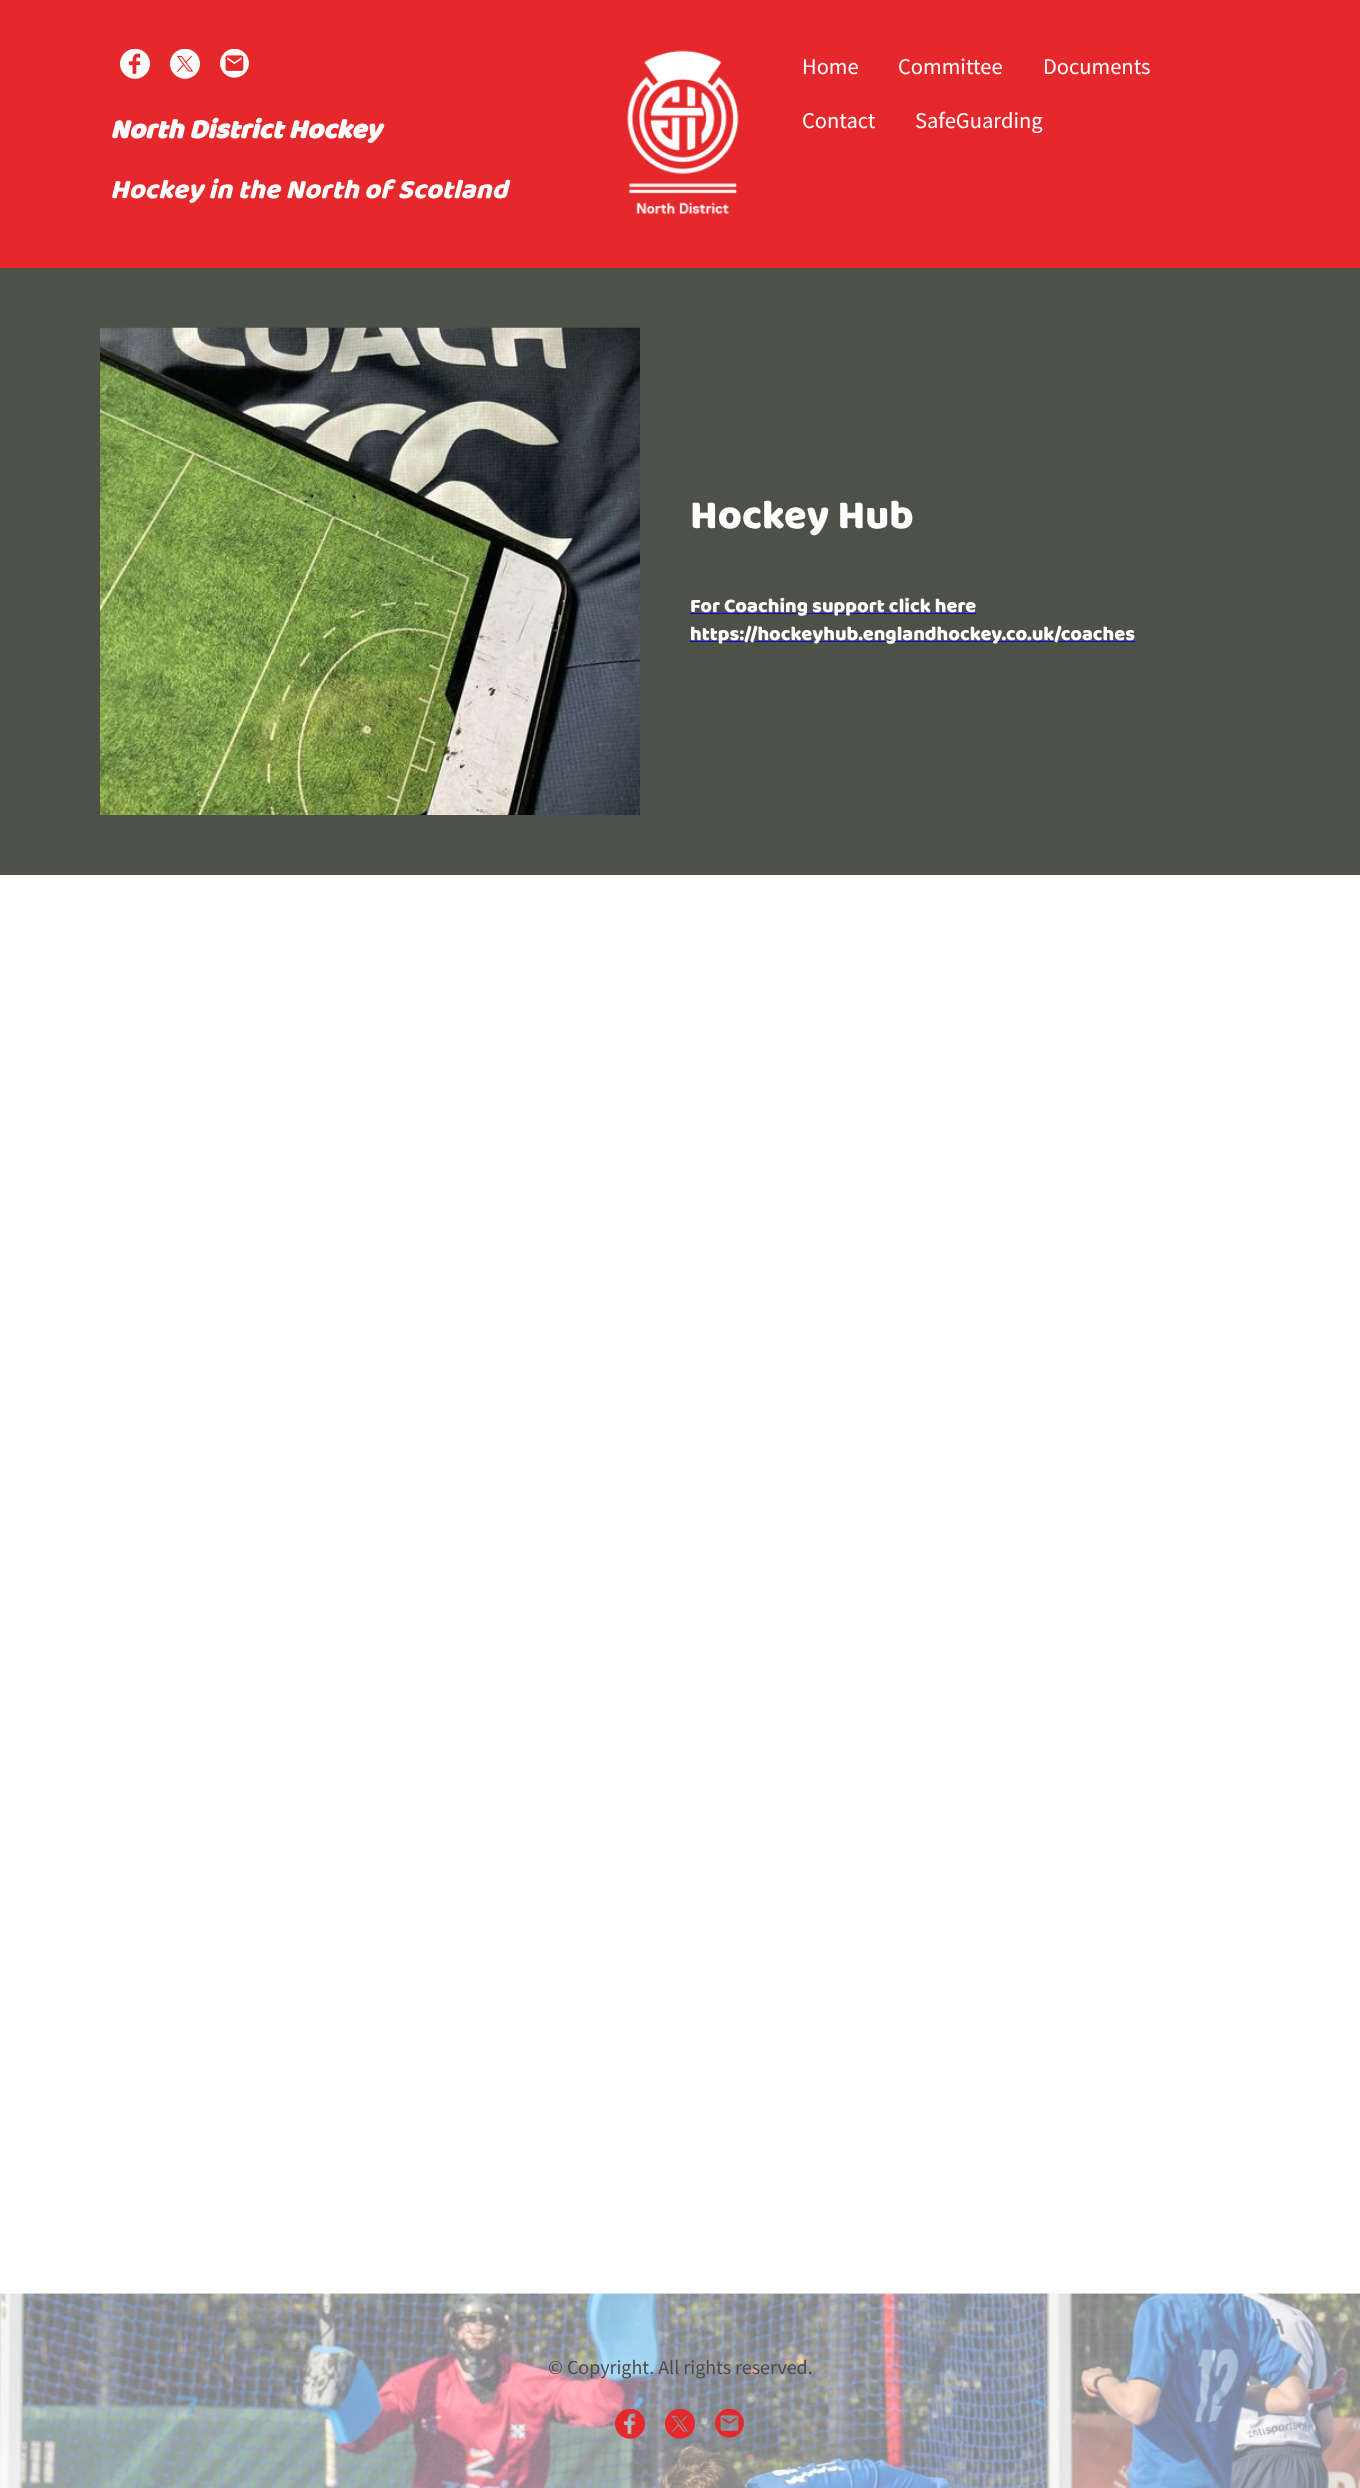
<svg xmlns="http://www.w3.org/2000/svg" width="1360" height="2488">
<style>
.a{font:22.5px Source Sans Pro;fill:#fff}
.b{font:italic bold 27.5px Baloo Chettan;fill:#fff}
.c{font:italic 27.5px Baloo Chettan;fill:#fff}
.d{font:41.25px Baloo Chettan;fill:#fff}
.e{font:20px Baloo Chettan;fill:#fff}
.f{font:20px Source Sans Pro;fill:#4b4b4b}
</style>
<rect width="100%" height="100%" fill="#fff"/>
<path fill="#e4282b" d="M0 0h1360v268H0z"/>
<image href="1.png" x="627" y="50" width="112" height="167"/>
<image href="2.png" x="120" y="49" width="30" height="30"/>
<image href="3.png" x="170" y="49" width="30" height="30"/>
<image href="4.png" x="220" y="49" width="29" height="29"/>
<path fill="#4d5147" d="M0 268h1360v607H0z"/>
<image href="5.png" x="100" y="327" width="540" height="488"/>
<path fill="#00e" d="M690 613h286v1H690z"/>
<path fill="#00e" d="M690 641h445v1H690z"/>
<image href="6.png" x="0" y="2293" width="1360" height="195"/>
<image href="7.png" x="615" y="2409" width="30" height="30"/>
<image href="8.png" x="665" y="2409" width="30" height="30"/>
<image href="9.png" x="715" y="2409" width="29" height="29"/>
<text class="a" x="802" y="74">Home</text>
<text class="a" x="898" y="74">Committee</text>
<text class="a" x="1043" y="74">Documents</text>
<text class="a" x="802" y="128">Contact</text>
<text class="a" x="915" y="128">SafeGuarding</text>
<text class="b" x="110" y="138">North District Hockey</text>
<text class="c" x="110" y="198">Hockey in the North of Scotland</text>
<text class="d" x="690" y="528">Hockey Hub</text>
<text class="e" x="690" y="612">For Coaching support click here</text>
<text class="e" x="690" y="640">https://hockeyhub.englandhockey.co.uk/coaches</text>
<text class="f" x="548" y="2374">© Copyright. All rights reserved.</text>
</svg>
